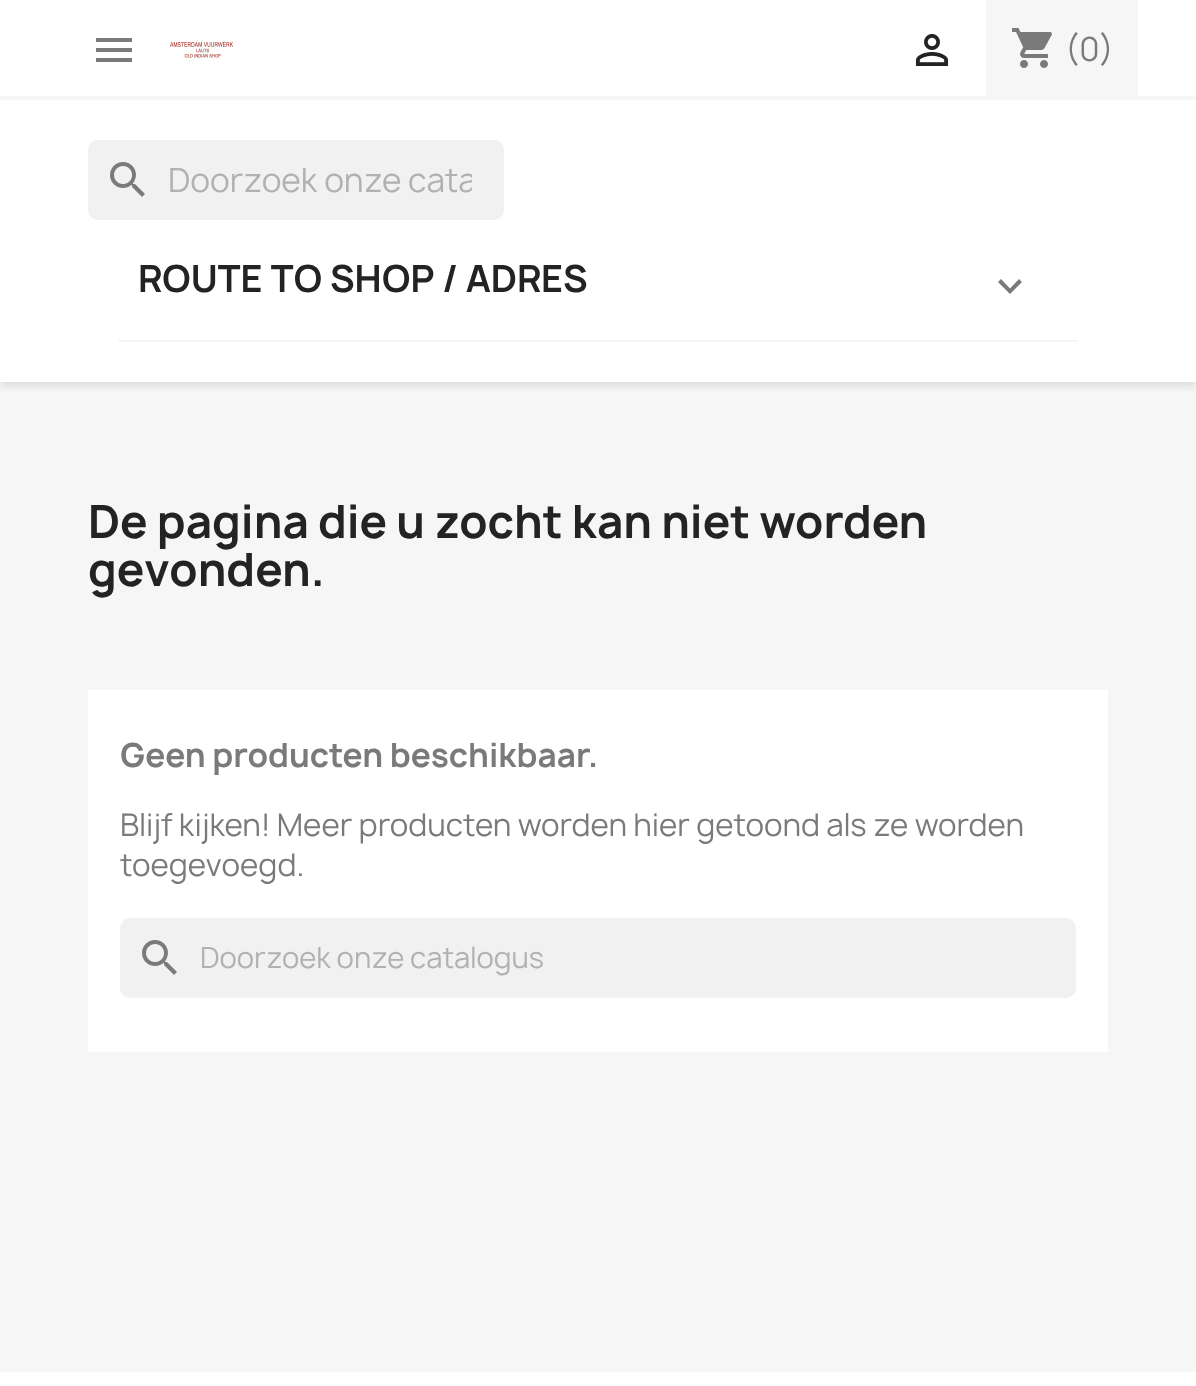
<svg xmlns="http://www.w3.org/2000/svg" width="1196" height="1386">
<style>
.a{font:32px Manrope;fill:#7a7a7a}
.b{font:32px Manrope;fill:#b1b1b1}
.c{font:bold 36px Manrope;fill:#232323}
.d{font:bold 44px Manrope;fill:#232323}
.e{font:bold 32px Manrope;fill:#7a7a7a}
.f{font:30px Manrope;fill:#7a7a7a}
.g{font:28px Manrope;fill:#b1b1b1}
</style>
<defs>
<clipPath id="clip1"><path d="M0 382h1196v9H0z"/></clipPath>
<clipPath id="clip2"><path d="M168 154h304v54H168z"/></clipPath>
</defs>
<rect width="100%" height="100%" fill="#fff"/>
<path fill="#f6f6f6" d="M0 382h1196v990H0z"/>
<g clip-path="url(#clip1)">
<path fill="#0000001c" filter="blur(5px)" d="M0 4h1196v382H0z"/>
</g>
<path fill="#f6f6f6" d="M0 96h1196v4H0z"/>
<path fill="#7a7a7a" d="M96 38h36v4h-36zm0 14v-4h36v4zm0 10v-4h36v4z"/>
<image href="1.png" x="170" y="42" width="63" height="16"/>
<image href="2.png" x="915" y="34" width="34" height="32"/>
<path fill="#f6f6f6" d="M986 0h152v96H986z"/>
<image href="3.png" x="1012" y="28" width="40" height="40"/>
<rect fill="#f1f1f1" x="88" y="140" width="416" height="80" rx="10"/>
<image href="4.png" x="110" y="162" width="35" height="35"/>
<path fill="#f6f6f6" d="M118 340h960v2H118z"/>
<path fill="#7a7a7a" d="M1001 279l9 9.5l9-9.5l3 3l-12 12l-12-12z"/>
<path fill="#fff" d="M88 690h1020v362H88z"/>
<rect fill="#f1f1f1" x="120" y="918" width="956" height="80" rx="10"/>
<image href="4.png" x="142" y="940" width="35" height="35"/>
<text class="a" x="1065" y="61">(0)</text>
<g clip-path="url(#clip2)">
<text class="b" x="168" y="192">Doorzoek onze cata</text>
</g>
<text class="c" x="138" y="292">ROUTE TO SHOP / ADRES</text>
<text class="d" x="88" y="538">De pagina die u zocht kan niet worden</text>
<text class="d" x="88" y="586">gevonden.</text>
<text class="e" x="120" y="767">Geen producten beschikbaar.</text>
<text class="f" x="120" y="836">Blijf kijken! Meer producten worden hier getoond als ze worden</text>
<text class="f" x="120" y="876">toegevoegd.</text>
<text class="g" x="200" y="968">Doorzoek onze catalogus</text>
</svg>
